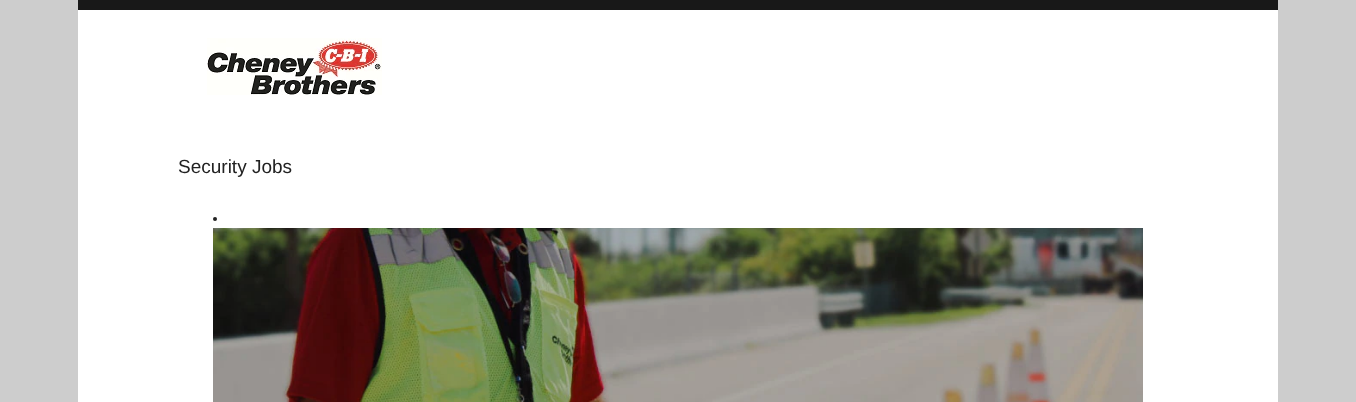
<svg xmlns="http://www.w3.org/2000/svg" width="1356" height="402">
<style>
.a{font:19px Liberation Sans;fill:#222}
</style>
<rect width="100%" height="100%" fill="#cdcdcd"/>
<path fill="#fff" d="M78 10h1200v392H78z"/>
<path fill="#181818" d="M78 0h1200v10H78z"/>
<image href="1.png" x="207" y="38" width="175" height="57"/>
<circle fill="#222" cx="215" cy="219" r="2"/>
<image href="2.png" x="213" y="228" width="930" height="174"/>
<text class="a" x="178" y="173">Security Jobs</text>
</svg>
